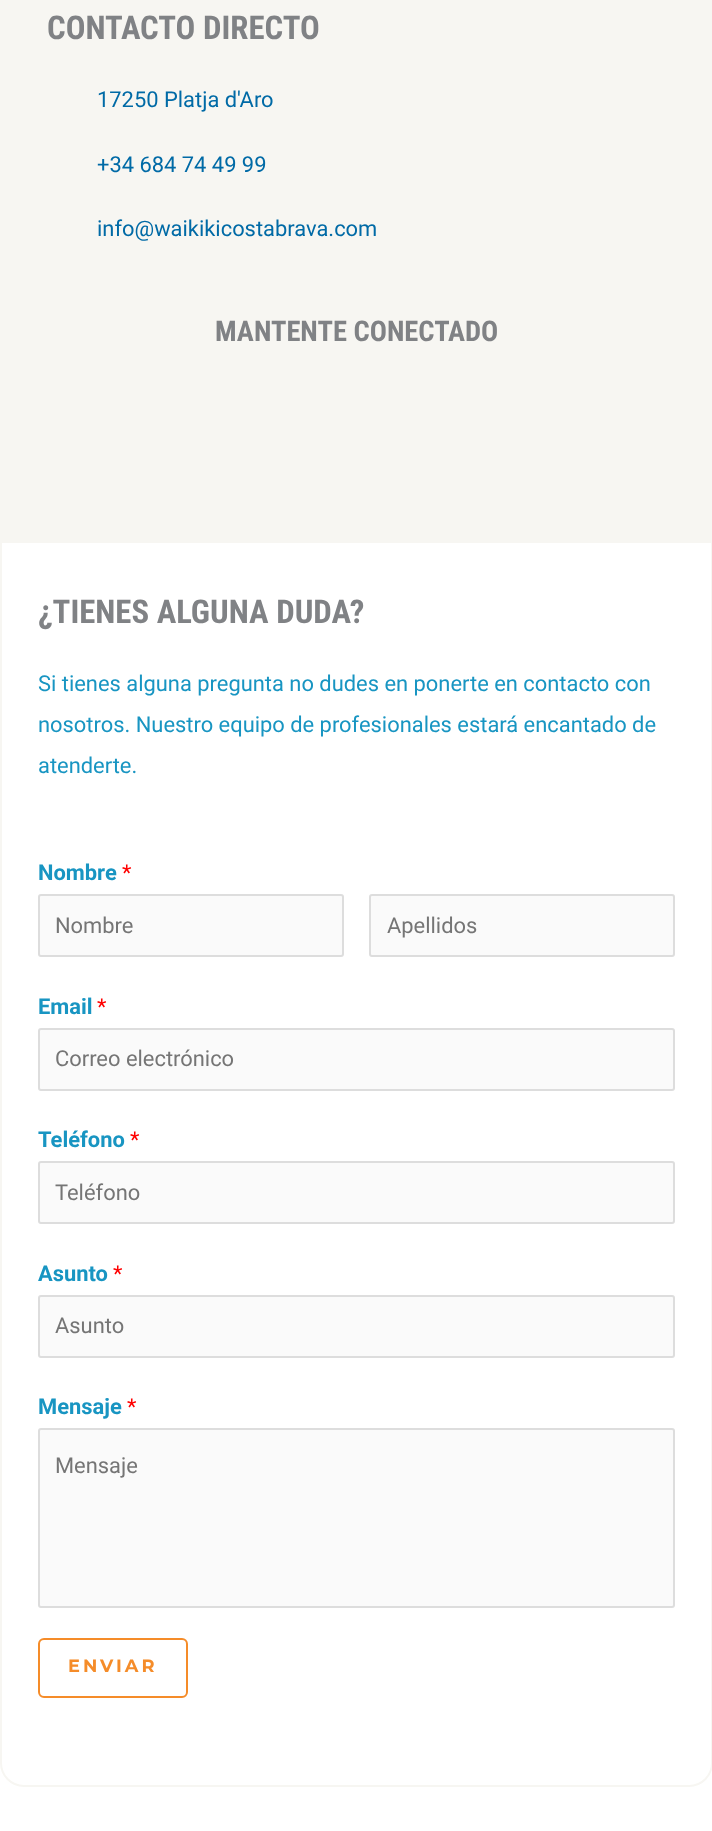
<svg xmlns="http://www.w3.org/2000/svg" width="712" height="1831">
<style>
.a{font:bold 32.75px Roboto Condensed;fill:#808285}
.b{font:21.9px Roboto;fill:#006aa6}
.c{font:bold 28.5px Roboto Condensed;fill:#808285}
.d{font:21.9px Roboto;fill:#1895c2}
.e{font:bold 21.9px Roboto;fill:#1895c2}
.f{font:21.9px Roboto;fill:#f00}
.g{font:21.9px Roboto;fill:#757575}
.h{font:bold 17.75px Montserrat;letter-spacing:3px;fill:#f58c29}
</style>
<rect width="100%" height="100%" fill="#fff"/>
<rect fill="none" stroke="#f7f6f2" stroke-width="2" x="1" y="-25" width="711" height="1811" rx="23"/>
<path fill="#f7f6f2" d="M2 0h709v543H2z"/>
<rect fill="#fafafa" stroke="#ddd" stroke-width="2" x="39" y="895" width="304" height="61" rx="2"/>
<rect fill="#fafafa" stroke="#ddd" stroke-width="2" x="370" y="895" width="304" height="61" rx="2"/>
<rect fill="#fafafa" stroke="#ddd" stroke-width="2" x="39" y="1029" width="635" height="61" rx="2"/>
<rect fill="#fafafa" stroke="#ddd" stroke-width="2" x="39" y="1162" width="635" height="61" rx="2"/>
<rect fill="#fafafa" stroke="#ddd" stroke-width="2" x="39" y="1296" width="635" height="61" rx="2"/>
<rect fill="#fafafa" stroke="#ddd" stroke-width="2" x="39" y="1429" width="635" height="178" rx="2"/>
<rect fill="none" stroke="#f58c29" stroke-width="2" x="39" y="1639" width="148" height="58" rx="5"/>
<text class="a" x="47" y="39">CONTACTO DIRECTO</text>
<text class="b" x="97" y="107">17250 Platja d'Aro</text>
<text class="b" x="97" y="172">+34 684 74 49 99</text>
<text class="b" x="97" y="236">info@waikikicostabrava.com</text>
<text class="c" x="215" y="341">MANTENTE CONECTADO</text>
<text class="a" x="38" y="623">¿TIENES ALGUNA DUDA?</text>
<text class="d" x="38" y="691">Si tienes alguna pregunta no dudes en ponerte en contacto con</text>
<text class="d" x="38" y="732">nosotros. Nuestro equipo de profesionales estará encantado de</text>
<text class="d" x="38" y="773">atenderte.</text>
<text class="e" x="38" y="880">Nombre</text>
<text class="f" x="122" y="880">*</text>
<text class="g" x="55" y="933">Nombre</text>
<text class="g" x="387" y="933">Apellidos</text>
<text class="e" x="38" y="1014">Email</text>
<text class="f" x="97" y="1014">*</text>
<text class="g" x="55" y="1066">Correo electrónico</text>
<text class="e" x="38" y="1147">Teléfono</text>
<text class="f" x="130" y="1147">*</text>
<text class="g" x="55" y="1200">Teléfono</text>
<text class="e" x="38" y="1281">Asunto</text>
<text class="f" x="113" y="1281">*</text>
<text class="g" x="55" y="1333">Asunto</text>
<text class="e" x="38" y="1414">Mensaje</text>
<text class="f" x="127" y="1414">*</text>
<text class="g" x="55" y="1473">Mensaje</text>
<text class="h" x="68" y="1672">ENVIAR</text>
</svg>
